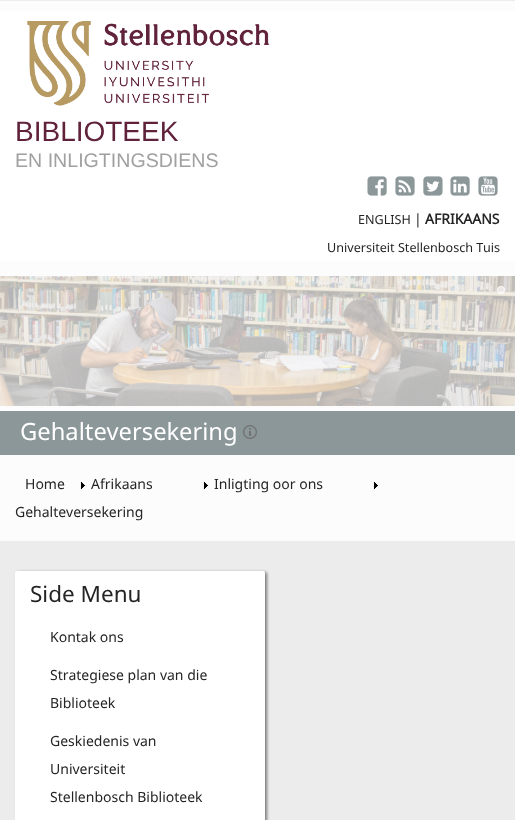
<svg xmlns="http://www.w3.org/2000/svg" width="515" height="820">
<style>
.a{font:28px Liberation Sans;fill:#60223b}
.b{font:19.6px Liberation Sans;fill:#a0a0a0}
.c{font:12.6px Noto Sans;fill:#242424}
.d{font:14px Noto Sans;fill:#242424}
.e{font:bold 14px Noto Sans;fill:#242424}
.f{font:23.75px Noto Sans;fill:#fff}
.g{font:22.5px Noto Sans;fill:#242424}
</style>
<rect width="100%" height="100%" fill="#ececec"/>
<path fill="#fcfcfc" d="M0 1h515v540H0z"/>
<path fill="#fff" d="M0 11h515v250H0z"/>
<image href="1.png" x="27" y="21" width="242" height="85"/>
<image href="2.png" x="367" y="176" width="20" height="20"/>
<image href="3.png" x="395" y="176" width="20" height="20"/>
<image href="4.png" x="423" y="176" width="20" height="20"/>
<image href="5.png" x="450" y="176" width="20" height="20"/>
<image href="6.png" x="478" y="176" width="20" height="20"/>
<image href="7.png" x="0" y="276" width="515" height="130"/>
<circle fill="#ffffff99" cx="501" cy="290" r="4"/>
<circle fill="none" stroke="#ffffff99" cx="501" cy="290" r="3.5"/>
<path fill="#8c979a" d="M0 411h515v44H0z"/>
<image href="8.png" x="243" y="425" width="14" height="14"/>
<image href="9.png" x="80" y="481" width="6" height="9"/>
<image href="9.png" x="203" y="481" width="6" height="9"/>
<image href="9.png" x="373" y="481" width="6" height="9"/>
<rect fill="#0000001a" filter="blur(1.5px)" x="17" y="572" width="250" height="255" rx="2"/>
<rect fill="#00000066" filter="blur(1.5px)" x="17" y="572" width="250" height="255" rx="2"/>
<rect fill="#fff" x="15" y="571" width="250" height="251" rx="2"/>
<text class="a" x="15" y="141">BIBLIOTEEK</text>
<text class="b" x="15" y="167">EN INLIGTINGSDIENS</text>
<text class="c" x="358" y="224">ENGLISH</text>
<text class="d" x="414" y="224">|</text>
<text class="e" x="425" y="224">AFRIKAANS</text>
<text class="c" x="327" y="252">Universiteit Stellenbosch Tuis</text>
<text class="f" x="20" y="440">Gehalteversekering</text>
<text class="d" x="25" y="489">Home</text>
<text class="d" x="91" y="489">Afrikaans</text>
<text class="d" x="214" y="489">Inligting oor ons</text>
<text class="d" x="15" y="517">Gehalteversekering</text>
<text class="g" x="30" y="602">Side Menu</text>
<text class="d" x="50" y="642">Kontak ons</text>
<text class="d" x="50" y="680">Strategiese plan van die</text>
<text class="d" x="50" y="708">Biblioteek</text>
<text class="d" x="50" y="746">Geskiedenis van</text>
<text class="d" x="50" y="774">Universiteit</text>
<text class="d" x="50" y="802">Stellenbosch Biblioteek</text>
</svg>
